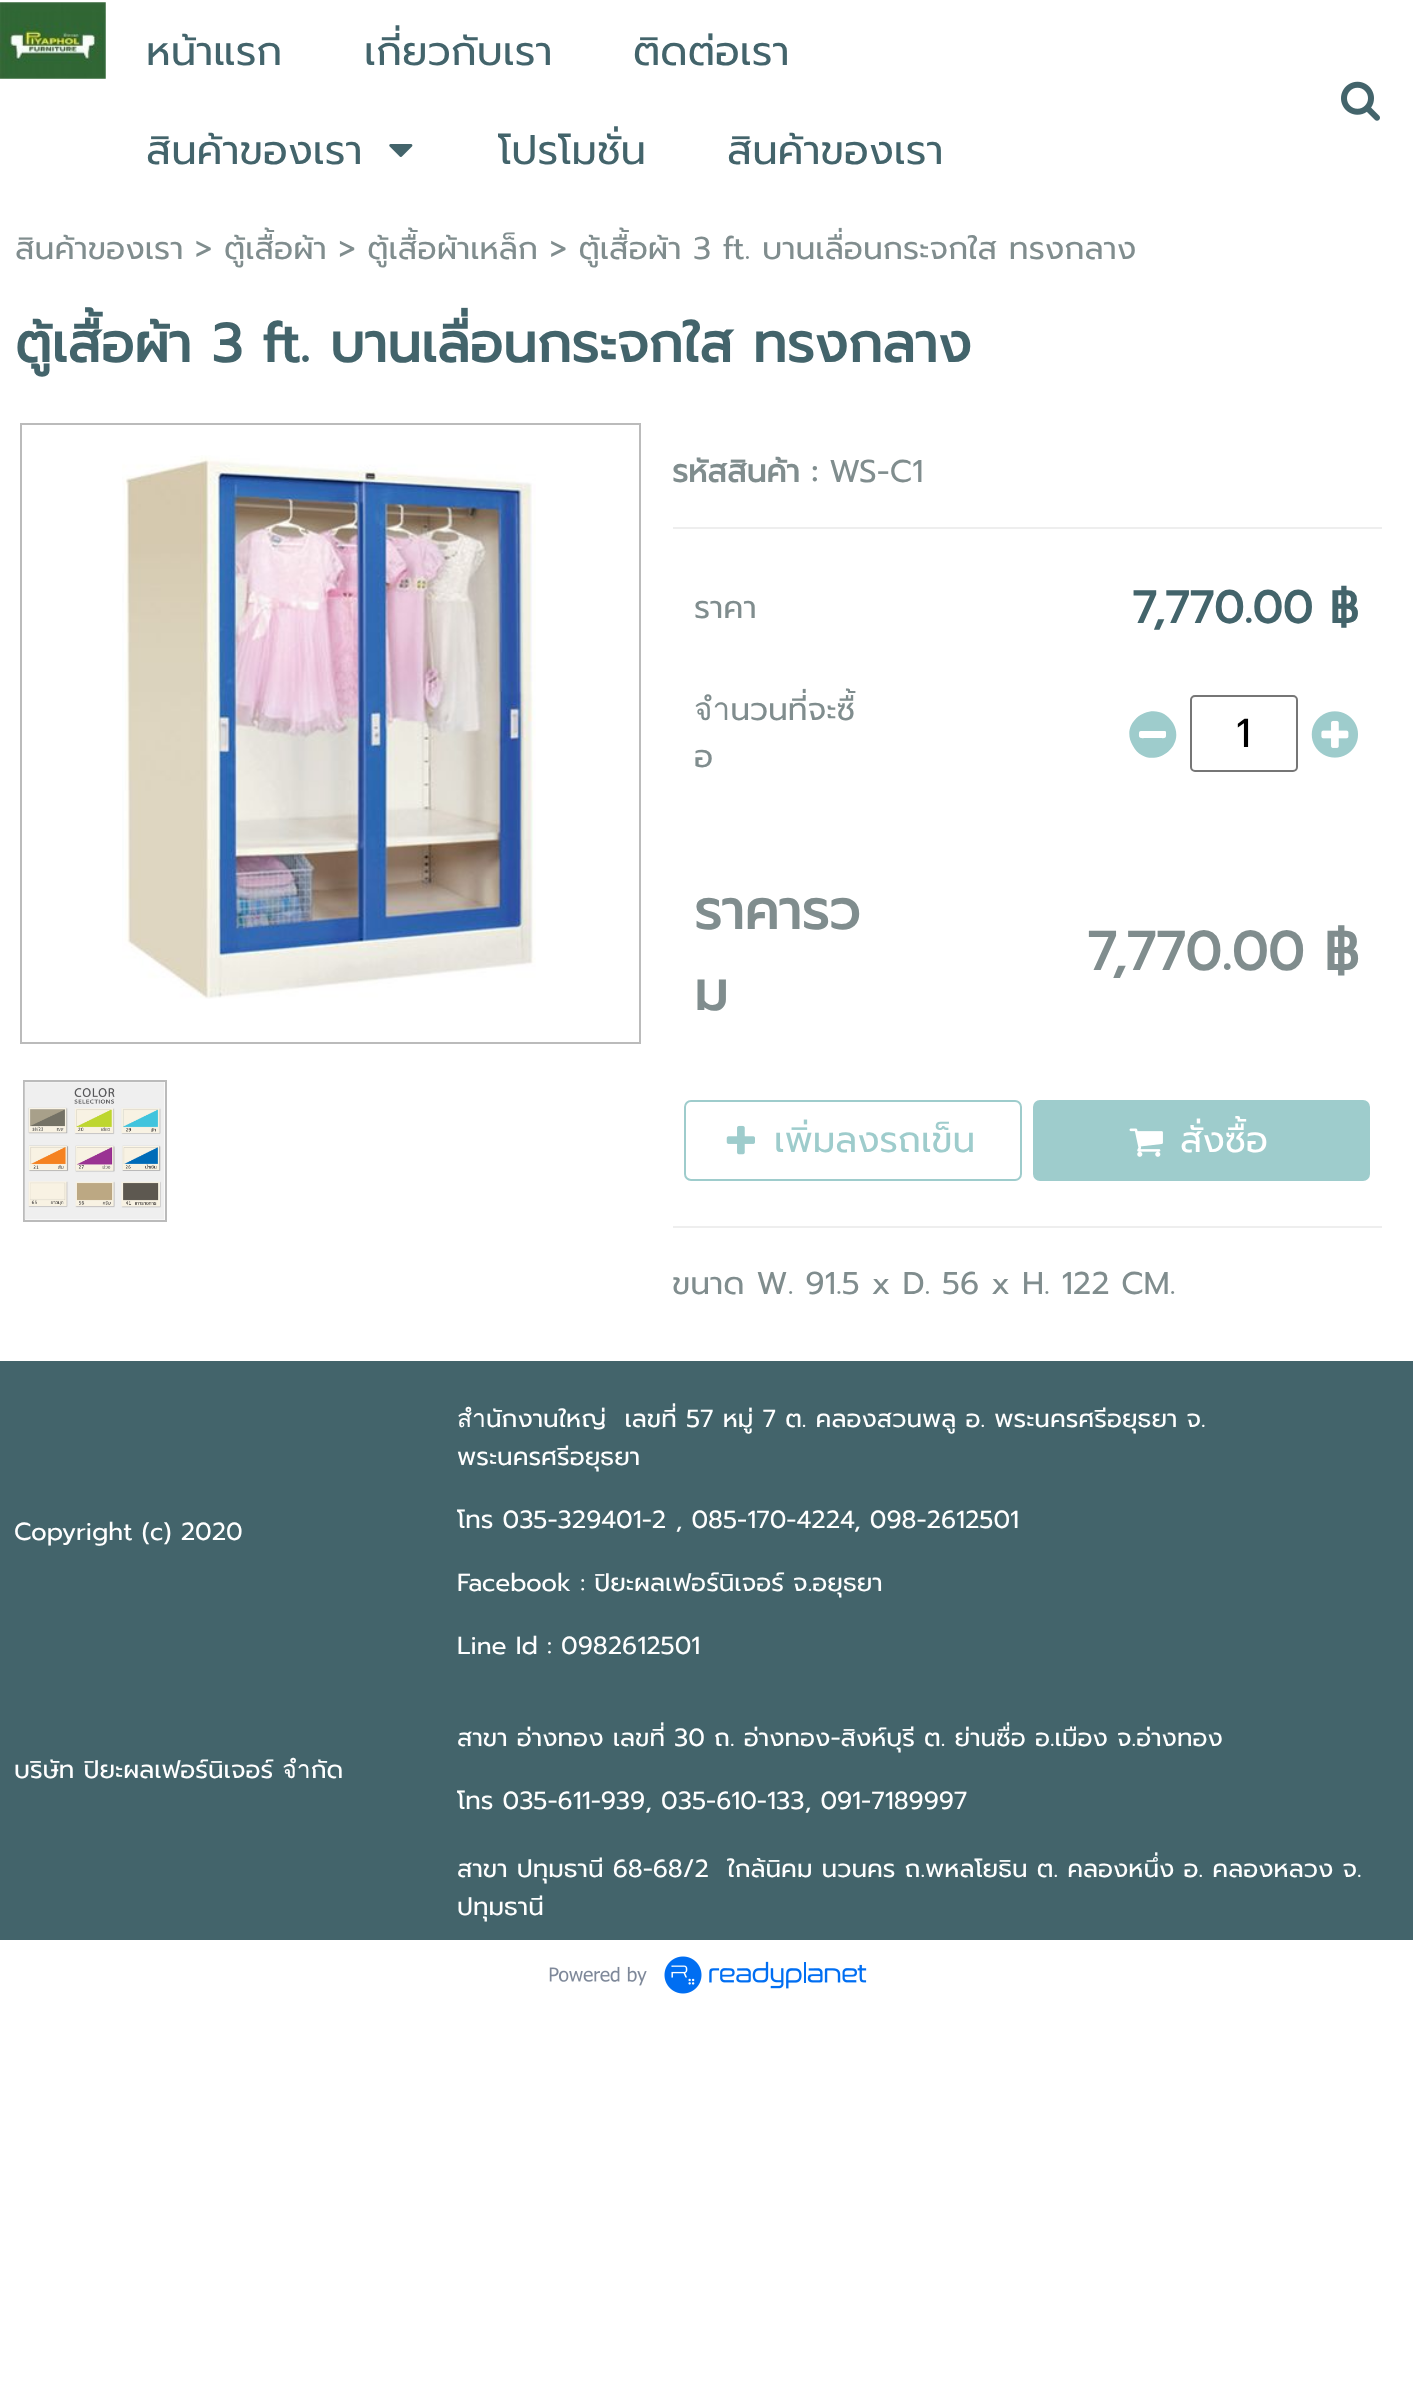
<svg xmlns="http://www.w3.org/2000/svg" width="1413" height="2395">
<style>
.a{font:40.5px Prompt;fill:#43646b}
.b{font:31.5px Prompt;fill:#808d8e}
.c{font:bold 54px Prompt;fill:#43646b}
.d{font:bold 31.5px Prompt;fill:#808d8e}
.e{font:bold 45px Prompt;fill:#43646b}
.f{font:40.5px Prompt;fill:#000}
.g{font:bold 54px Prompt;fill:#808d8e}
.h{font:36px Prompt;fill:#9ecccc}
.i{font:36px Prompt;fill:#fff}
.j{font:24.75px Prompt;fill:#fff}
</style>
<rect width="100%" height="100%" fill="#fff"/>
<image href="1.png" x="0" y="2" width="106" height="77"/>
<image href="2.png" x="389" y="144" width="24" height="13"/>
<image href="3.png" x="1341" y="81" width="39" height="40"/>
<path fill="none" stroke="#bbb" stroke-width="2" d="M21 424h619v619H21z"/>
<image href="4.png" x="122" y="455" width="414" height="544"/>
<path fill="none" stroke="#bbb" stroke-width="2" d="M24 1081h142v140H24z"/>
<image href="5.png" x="24" y="1082" width="141" height="138"/>
<path fill="#eee" d="M673 527h709v2H673z"/>
<path fill="#eee" d="M673 1226h709v2H673z"/>
<path fill="#9ecccc" d="M1166 736c0-6 1-5-6-5h-15c-6 0-6-1-6 5c0 3 5 2 6 2h15c2 0 6 1 6-2zm7-13c15 26-25 50-40 23c-16-26 24-50 40-23z"/>
<rect fill="none" stroke="#767676" stroke-width="2" x="1191" y="696" width="106" height="75" rx="4"/>
<image href="6.png" x="1311" y="711" width="47" height="47"/>
<rect fill="none" stroke="#9ecccc" stroke-width="2" x="685" y="1101" width="336" height="79" rx="6"/>
<image href="7.png" x="726" y="1125" width="29" height="30"/>
<rect fill="#9ecccc" stroke="#9ecccc" stroke-width="2" x="1034" y="1101" width="335" height="79" rx="6"/>
<image href="8.png" x="1129" y="1128" width="34" height="29"/>
<path fill="#43646b" d="M0 1361h1413v579H0z"/>
<image href="9.png" x="549" y="1956" width="318" height="38"/>
<text class="a" x="146" y="65">หน้าแรก</text>
<text class="a" x="364" y="65">เกี่ยวกับเรา</text>
<text class="a" x="633" y="65">ติดต่อเรา</text>
<text class="a" x="146" y="164">สินค้าของเรา</text>
<text class="a" x="498" y="164">โปรโมชั่น</text>
<text class="a" x="727" y="164">สินค้าของเรา</text>
<text class="b" x="15" y="259">สินค้าของเรา &gt; ตู้เสื้อผ้า &gt; ตู้เสื้อผ้าเหล็ก &gt; ตู้เสื้อผ้า 3 ft. บานเลื่อนกระจกใส ทรงกลาง</text>
<text class="c" x="15" y="362">ตู้เสื้อผ้า 3 ft. บานเลื่อนกระจกใส ทรงกลาง</text>
<text class="d" x="672" y="482">รหัสสินค้า :</text>
<text class="b" x="829" y="482">WS-C1</text>
<text class="b" x="694" y="618">ราคา</text>
<text class="e" x="1132" y="623">7,770.00 ฿</text>
<text class="b" x="694" y="720">จำนวนที่จะซื้</text>
<text class="b" x="694" y="767">อ</text>
<text class="f" x="1236" y="747">1</text>
<text class="g" x="694" y="929">ราคารว</text>
<text class="g" x="694" y="1010">ม</text>
<text class="g" x="1087" y="970">7,770.00 ฿</text>
<text class="h" x="774" y="1152">เพิ่มลงรถเข็น</text>
<text class="i" x="1180" y="1152">สั่งซื้อ</text>
<text class="b" x="672" y="1294">ขนาด W. 91.5 x D. 56 x H. 122 CM.</text>
<text class="j" x="14" y="1540">Copyright (c) 2020</text>
<text class="j" xml:space="preserve" x="457" y="1427">สำนักงานใหญ่  เลขที่ 57 หมู่ 7 ต. คลองสวนพลู อ. พระนครศรีอยุธยา จ.</text>
<text class="j" x="457" y="1465">พระนครศรีอยุธยา</text>
<text class="j" x="457" y="1528">โทร 035-329401-2 , 085-170-4224, 098-2612501</text>
<text class="j" x="457" y="1591">Facebook : ปิยะผลเฟอร์นิเจอร์ จ.อยุธยา</text>
<text class="j" x="457" y="1654">Line Id : 0982612501</text>
<text class="j" x="14" y="1778">บริษัท ปิยะผลเฟอร์นิเจอร์ จำกัด</text>
<text class="j" x="457" y="1746">สาขา อ่างทอง เลขที่ 30 ถ. อ่างทอง-สิงห์บุรี ต. ย่านซื่อ อ.เมือง จ.อ่างทอง</text>
<text class="j" x="457" y="1809">โทร 035-611-939, 035-610-133, 091-7189997</text>
<text class="j" xml:space="preserve" x="457" y="1877">สาขา ปทุมธานี 68-68/2  ใกล้นิคม นวนคร ถ.พหลโยธิน ต. คลองหนึ่ง อ. คลองหลวง จ.</text>
<text class="j" x="457" y="1915">ปทุมธานี</text>
</svg>
